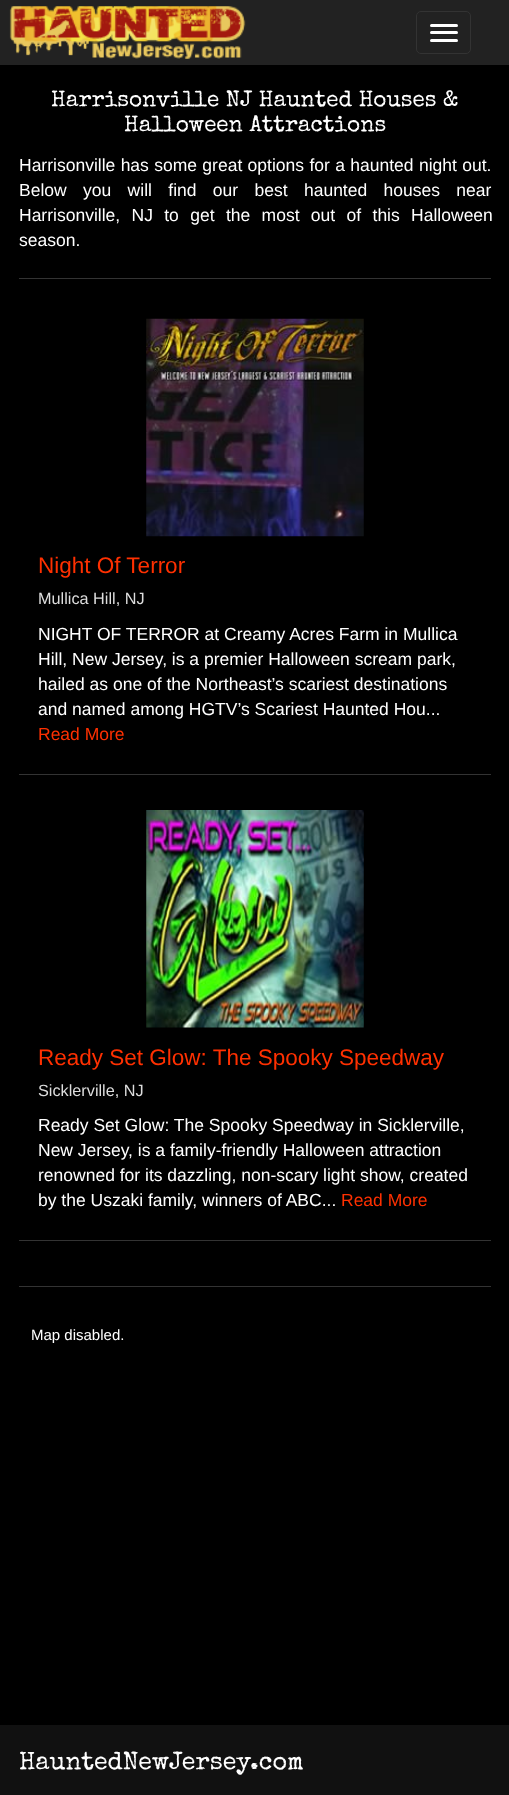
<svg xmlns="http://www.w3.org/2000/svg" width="509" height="1795">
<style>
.a{font:22.5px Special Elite;fill:#fff}
.b{font:17.5px Liberation Sans;fill:#fff}
.c{font:22.5px Liberation Sans;fill:#ff3000}
.d{font:16.25px Liberation Sans;fill:#ddd}
.e{font:17.5px Liberation Sans;fill:#ff3000}
.f{font:15px Liberation Sans;fill:#fff}
.g{font:25px Special Elite;fill:#fff}
</style>
<rect width="100%" height="100%" fill="#000"/>
<path fill="#222" d="M0 0h509v65H0z"/>
<image href="1.png" x="9" y="6" width="237" height="53"/>
<rect fill="none" stroke="#333" x="416.5" y="11.5" width="54" height="42" rx="4.5"/>
<rect fill="#fff" x="430" y="24" width="28" height="3" rx="1.5"/>
<rect fill="#fff" x="430" y="31" width="28" height="3" rx="1.5"/>
<rect fill="#fff" x="430" y="39" width="28" height="3" rx="1.5"/>
<path fill="#333" d="M19 278h472v1H19z"/>
<path fill="#333" d="M19 774h472v1H19z"/>
<image href="2.png" x="146" y="318" width="218" height="219"/>
<path fill="#333" d="M19 1240h472v1H19z"/>
<image href="3.png" x="146" y="810" width="218" height="218"/>
<path fill="#333" d="M19 1286h472v1H19z"/>
<path fill="#111" d="M0 1725h509v70H0z"/>
<text class="a" x="51" y="106">Harrisonville NJ Haunted Houses &amp;</text>
<text class="a" x="124" y="131">Halloween Attractions</text>
<text class="b" x="19" y="171" word-spacing="0.5">Harrisonville has some great options for a haunted night out.</text>
<text class="b" x="19" y="196" word-spacing="11.5">Below you will find our best haunted houses near</text>
<text class="b" x="19" y="221" word-spacing="6.5">Harrisonville, NJ to get the most out of this Halloween</text>
<text class="b" x="19" y="246">season.</text>
<text class="c" x="38" y="573">Night Of Terror</text>
<text class="d" x="38" y="604">Mullica Hill, NJ</text>
<text class="b" x="38" y="640">NIGHT OF TERROR at Creamy Acres Farm in Mullica</text>
<text class="b" x="38" y="665">Hill, New Jersey, is a premier Halloween scream park,</text>
<text class="b" x="38" y="690">hailed as one of the Northeast’s scariest destinations</text>
<text class="b" x="38" y="715">and named among HGTV’s Scariest Haunted Hou...</text>
<text class="e" x="38" y="740">Read More</text>
<text class="c" x="38" y="1065">Ready Set Glow: The Spooky Speedway</text>
<text class="d" x="38" y="1096">Sicklerville, NJ</text>
<text class="b" x="38" y="1131">Ready Set Glow: The Spooky Speedway in Sicklerville,</text>
<text class="b" x="38" y="1156">New Jersey, is a family-friendly Halloween attraction</text>
<text class="b" x="38" y="1181">renowned for its dazzling, non-scary light show, created</text>
<text class="b" x="38" y="1206">by the Uszaki family, winners of ABC...</text>
<text class="e" x="341" y="1206">Read More</text>
<text class="f" x="31" y="1340">Map disabled.</text>
<text class="g" x="19" y="1769">HauntedNewJersey.com</text>
</svg>
